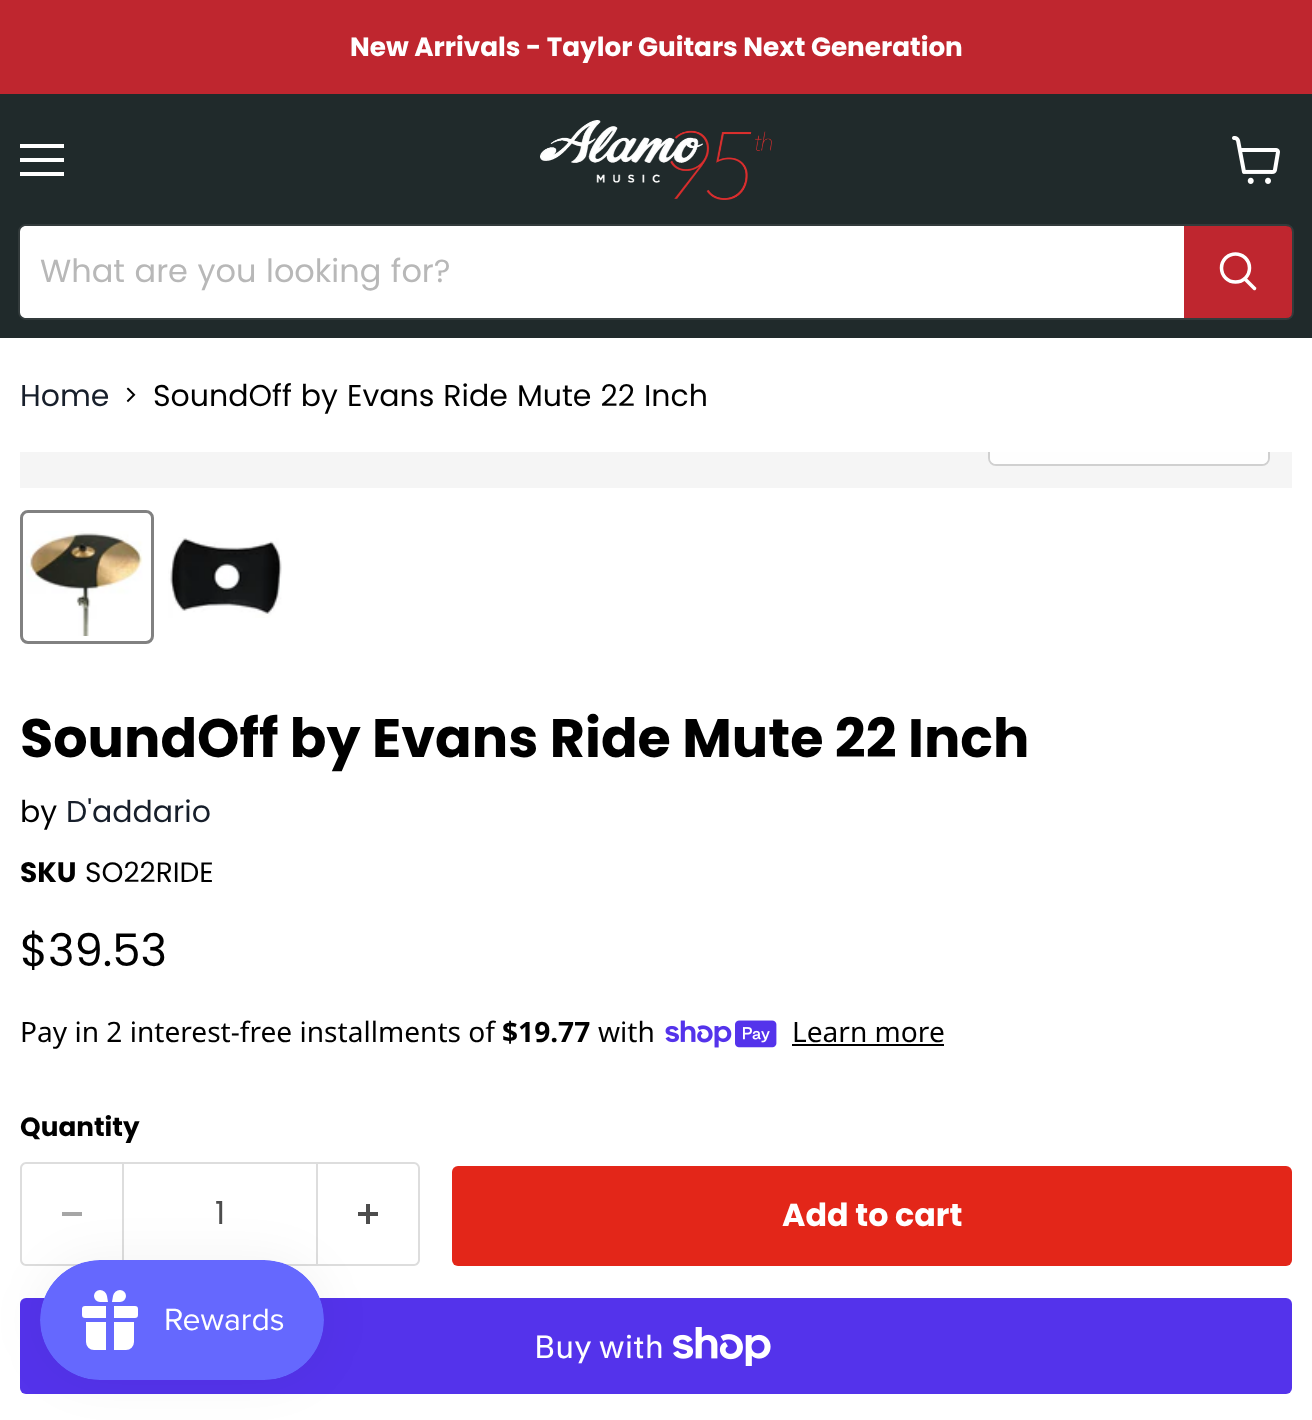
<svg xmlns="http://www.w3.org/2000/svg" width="1312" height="1420">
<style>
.a{font:bold 26.25px Poppins;fill:#fff}
.b{font:32px Poppins;fill:#b8b8b8}
.c{font:30px Poppins;fill:#171f2b}
.d{font:30px Poppins;fill:#000}
.e{font:bold 54px Poppins;fill:#000}
.f{font:bold 28px Poppins;fill:#000}
.g{font:28px Poppins;fill:#000}
.h{font:45px Poppins;fill:#000}
.i{font:28.1px Noto Sans;fill:#000}
.j{font:bold 28.1px Noto Sans;fill:#000}
.k{font:bold 26.25px Poppins;fill:#000}
.l{font:31.75px Poppins;fill:#4d4d4d}
.m{font:bold 31.75px Poppins;fill:#fff}
.n{font:32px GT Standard;fill:#fff}
</style>
<defs>
<clipPath id="clip1"><path d="M20 452h1272v36H20z"/></clipPath>
</defs>
<rect width="100%" height="100%" fill="#fff"/>
<path fill="#bf262f" d="M0 0h1312v94H0z"/>
<path fill="#202a2b" d="M0 94h1312v244H0z"/>
<path fill="#fff" d="M20 144h44v4H20z"/>
<path fill="#fff" d="M20 158h44v4H20z"/>
<path fill="#fff" d="M20 172h44v4H20z"/>
<image href="1.png" x="1232" y="136" width="48" height="48"/>
<image href="2.png" x="540" y="120" width="232" height="80"/>
<rect fill="none" stroke="#80808033" stroke-width="2" x="19" y="225" width="1274" height="94" rx="7"/>
<path fill="#fff" d="M26 226h1158v92h-1158c-3.5 0-6-2.5-6-6v-80c0-3.5 2.5-6 6-6z"/>
<path fill="#bf262f" stroke="#bf262f" stroke-width="2" d="M1185 227h101c3 0 5 2 5 5v80c0 3-2 5-5 5h-101z"/>
<path fill="none" stroke="#fff" stroke-width="3.5" stroke-linecap="round" d="M1254.5 288.5l-9.5-9.5"/>
<circle fill="none" stroke="#fff" stroke-width="3.5" cx="1235.5" cy="268" r="14"/>
<image href="3.png" x="126" y="387" width="10" height="16"/>
<path fill="#f5f5f5" d="M20 452h1272v36H20z"/>
<g clip-path="url(#clip1)">
<rect fill="none" stroke="#d0d0d0" stroke-width="2" x="989" y="407" width="280" height="58" rx="7"/>
</g>
<path fill="#ffffffe6" d="M990 452h278v6c0 3.5-2.5 6-6 6h-266c-3.5 0-6-2.5-6-6z"/>
<rect fill="none" stroke="#818181" stroke-width="3" x="21.5" y="511.5" width="131" height="131" rx="6.5"/>
<image href="4.png" x="26" y="531" width="117" height="105"/>
<image href="5.png" x="168" y="537" width="114" height="81"/>
<image href="6.png" x="665" y="1020" width="112" height="28"/>
<path fill="#000" d="M792 1044h152v2H792z"/>
<path fill="#ddd" fill-rule="evenodd" d="M26 1162h96v104h-96c-3 0-6-3-6-6v-92c0-3 3-6 6-6zm0 2h96v100h-96c-2 0-4-2-4-4v-92c0-2 2-4 4-4z"/>
<path fill="#a6a6a6" d="M62 1212h20v4H62z"/>
<path fill="none" stroke="#ddd" stroke-width="2" d="M123 1163h194v102H123z"/>
<path fill="#ddd" fill-rule="evenodd" d="M318 1162h96c3 0 6 3 6 6v92c0 3-3 6-6 6h-96zm0 2h96c2 0 4 2 4 4v92c0 2-2 4-4 4h-96z"/>
<image href="7.png" x="358" y="1204" width="20" height="20"/>
<rect fill="#e32619" x="452" y="1166" width="840" height="100" rx="6"/>
<rect fill="#5433eb" x="20" y="1298" width="1272" height="96" rx="6"/>
<image href="8.png" x="673" y="1327" width="98" height="39"/>
<rect fill="#0000000d" filter="blur(25px)" x="40" y="1260" width="284" height="120" rx="60"/>
<image href="9.png" x="40" y="1260" width="284" height="120"/>
<text class="a" x="350" y="56">New Arrivals - Taylor Guitars Next Generation</text>
<text class="b" x="40" y="282" word-spacing="1">What are you looking for?</text>
<text class="c" x="20" y="406">Home</text>
<text class="d" x="153" y="406" word-spacing="1">SoundOff by Evans Ride Mute 22 Inch</text>
<text class="e" x="20" y="757">SoundOff by Evans Ride Mute 22 Inch</text>
<text class="d" x="20" y="822">by</text>
<text class="c" x="66" y="822">D'addario</text>
<text class="f" x="20" y="882">SKU</text>
<text class="g" x="85" y="882">SO22RIDE</text>
<text class="h" x="20" y="966">$39.53</text>
<text class="i" x="20" y="1042">Pay in 2 interest-free installments of</text>
<text class="j" x="502" y="1042">$19.77</text>
<text class="i" x="598" y="1042">with</text>
<text class="i" x="792" y="1042">Learn more</text>
<text class="k" x="20" y="1136">Quantity</text>
<text class="l" x="215" y="1224">1</text>
<text class="m" x="782" y="1226">Add to cart</text>
<text class="n" x="534" y="1358">Buy with</text>
</svg>
